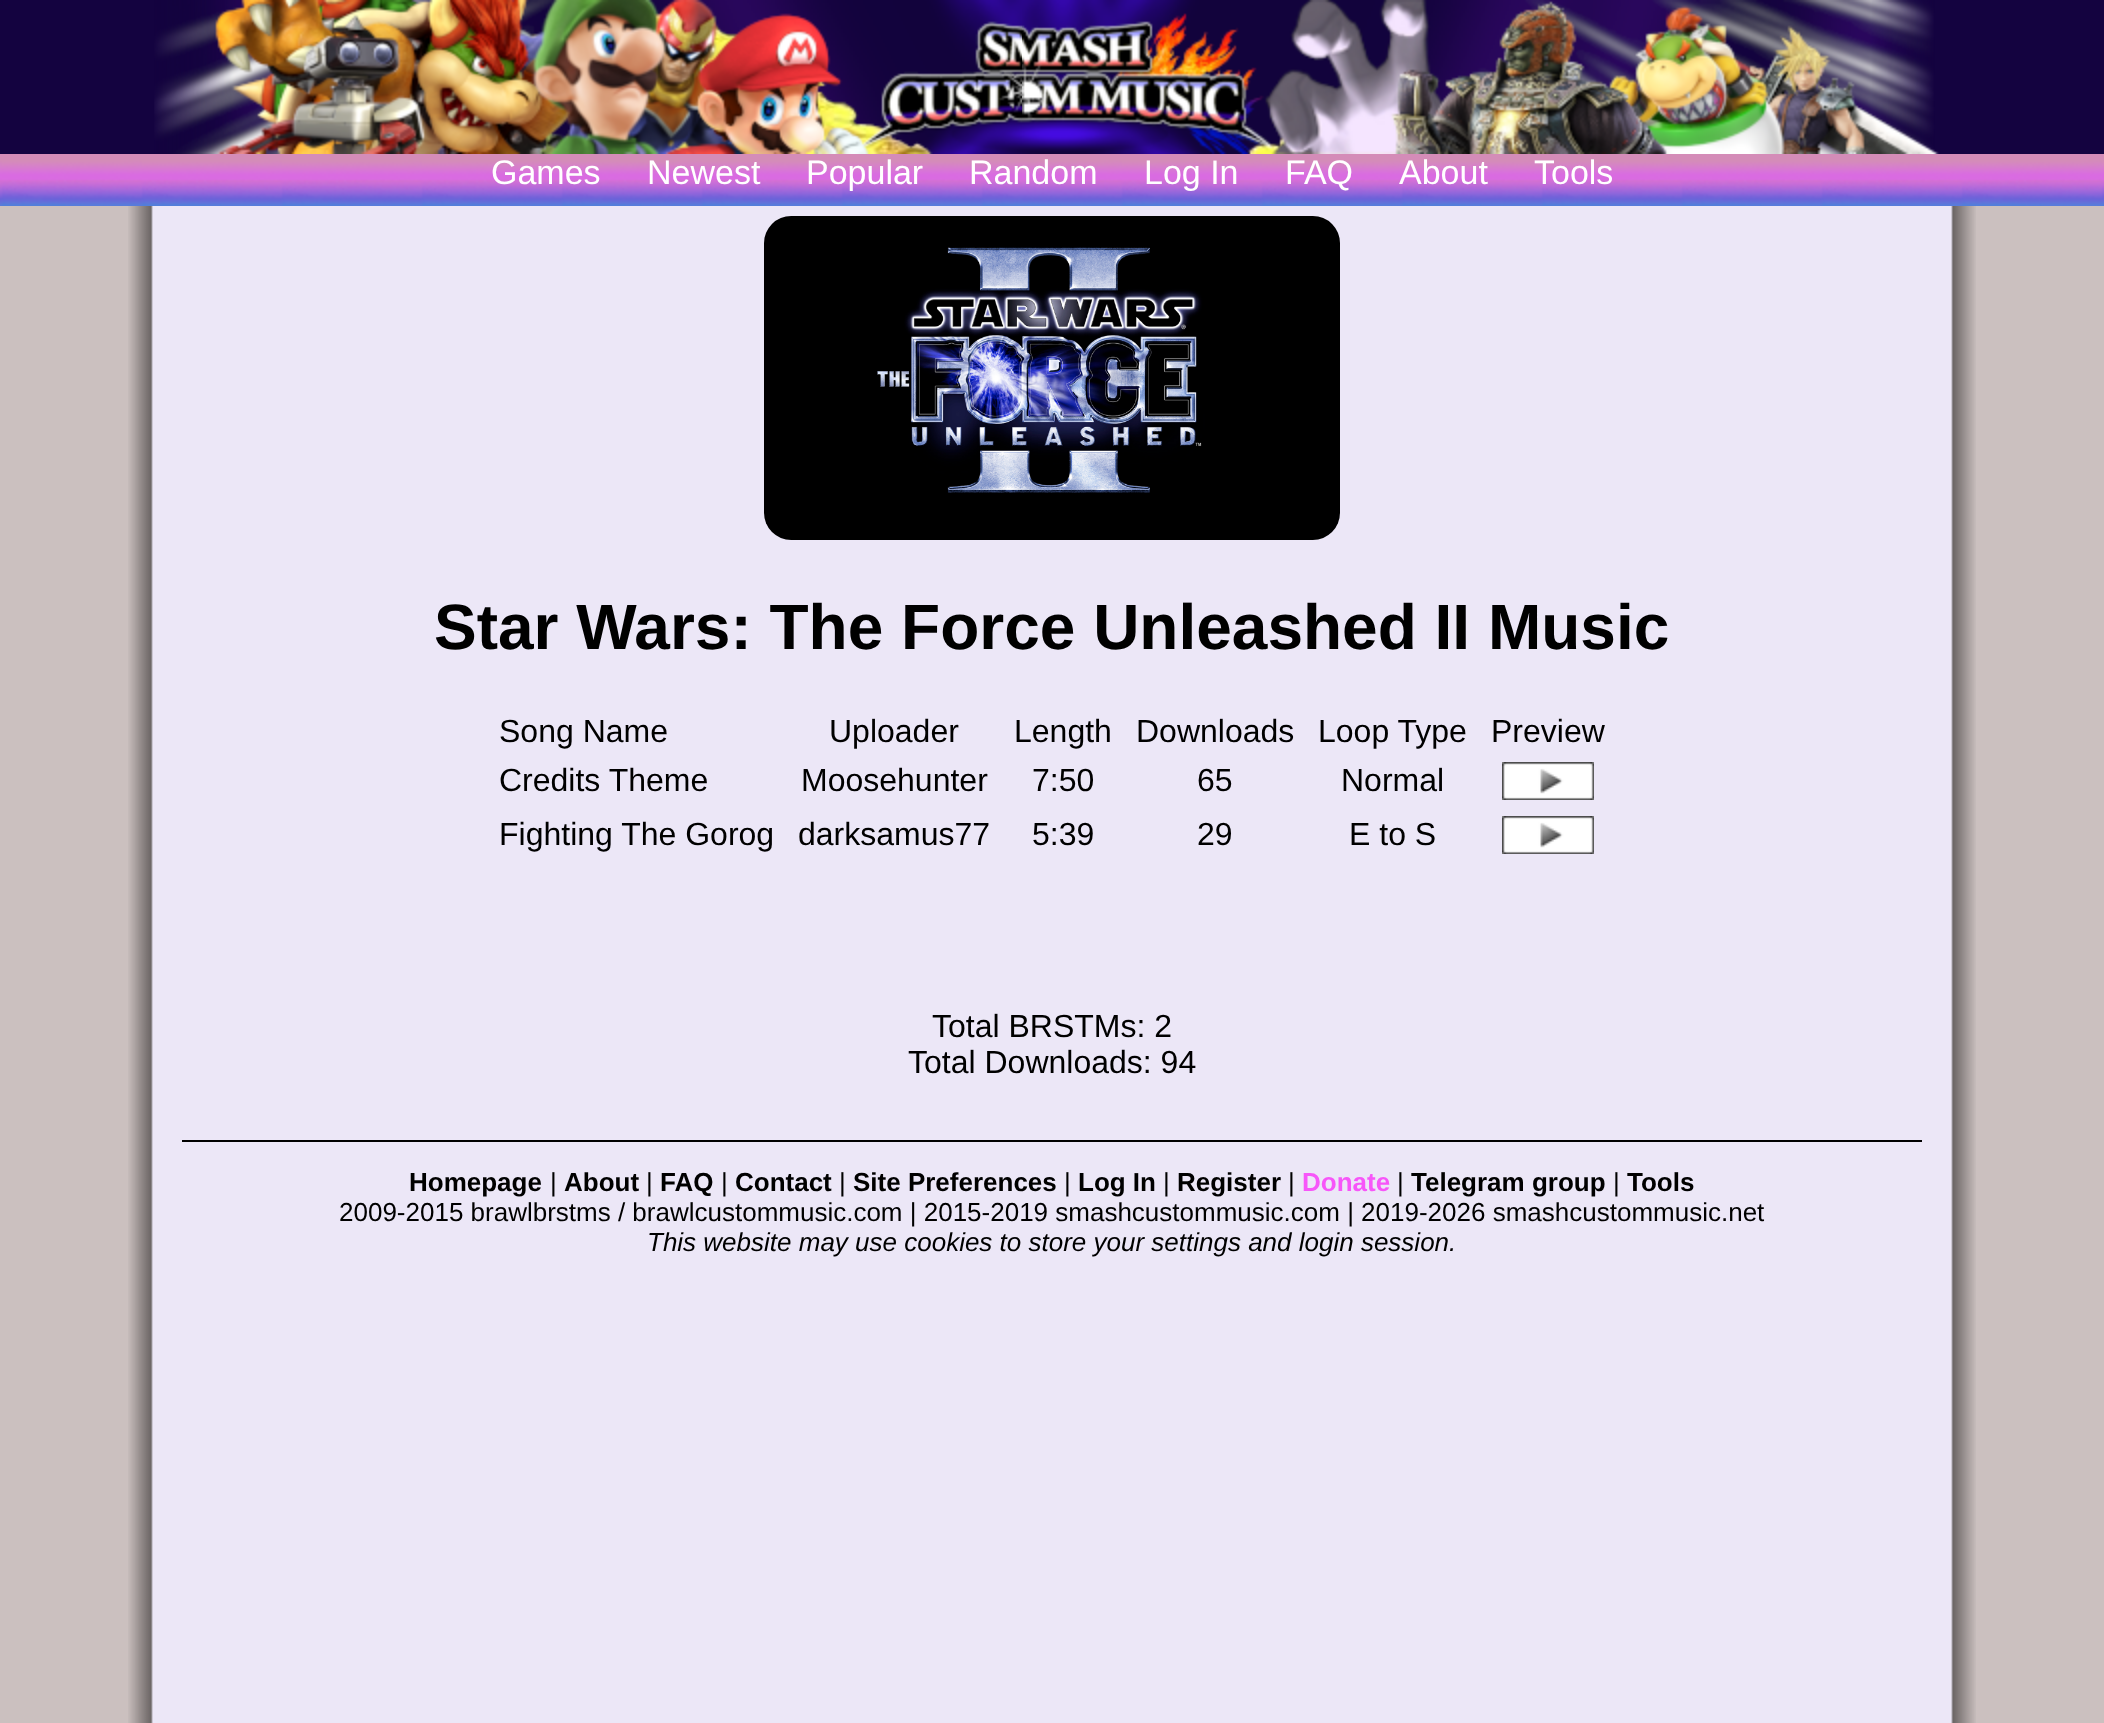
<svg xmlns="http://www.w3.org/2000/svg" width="2104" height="1723">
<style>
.a{font:34px Liberation Sans;fill:#fff}
.b{font:bold 64px Liberation Sans;fill:#000}
.c{font:32px Liberation Sans;fill:#000}
.d{font:bold 26px Liberation Sans;fill:#000}
.e{font:26px Liberation Sans;fill:#000}
.f{font:bold 26px Liberation Sans;fill:#f756f9}
.g{font:italic 26px Liberation Sans;fill:#000}
</style>
<rect width="100%" height="100%" fill="#cbc0bf"/>
<image href="1.png" x="128" y="206" width="1848" height="1517"/>
<path fill="#140340" d="M0 0h2104v154H0z"/>
<image href="2.png" x="154" y="0" width="1785" height="154"/>
<image href="3.png" x="0" y="154" width="2104" height="52"/>
<path fill="#cbc0bf" d="M128 216h1848v1070H128z"/>
<image href="4.png" x="128" y="216" width="1848" height="1070"/>
<image href="5.png" x="764" y="216" width="576" height="324"/>
<image href="6.png" x="1502" y="762" width="92" height="38"/>
<image href="7.png" x="1502" y="816" width="92" height="38"/>
<path fill="#000" d="M182 1140h1740v2H182z"/>
<text class="a" x="491" y="184">Games</text>
<text class="a" x="647" y="184">Newest</text>
<text class="a" x="806" y="184">Popular</text>
<text class="a" x="969" y="184">Random</text>
<text class="a" x="1144" y="184">Log In</text>
<text class="a" x="1285" y="184">FAQ</text>
<text class="a" x="1399" y="184">About</text>
<text class="a" x="1534" y="184">Tools</text>
<text class="b" x="434" y="649">Star Wars: The Force Unleashed II Music</text>
<text class="c" x="499" y="742">Song Name</text>
<text class="c" x="829" y="742">Uploader</text>
<text class="c" x="1014" y="742">Length</text>
<text class="c" x="1136" y="742">Downloads</text>
<text class="c" x="1318" y="742">Loop Type</text>
<text class="c" x="1491" y="742">Preview</text>
<text class="c" x="499" y="791">Credits Theme</text>
<text class="c" x="801" y="791">Moosehunter</text>
<text class="c" x="1032" y="791">7:50</text>
<text class="c" x="1197" y="791">65</text>
<text class="c" x="1341" y="791">Normal</text>
<text class="c" x="499" y="845">Fighting The Gorog</text>
<text class="c" x="798" y="845">darksamus77</text>
<text class="c" x="1032" y="845">5:39</text>
<text class="c" x="1197" y="845">29</text>
<text class="c" x="1349" y="845">E to S</text>
<text class="c" x="932" y="1037">Total BRSTMs: 2</text>
<text class="c" x="908" y="1073">Total Downloads: 94</text>
<text class="d" x="409" y="1191">Homepage</text>
<text class="e" x="550" y="1191">|</text>
<text class="d" x="564" y="1191">About</text>
<text class="e" x="646" y="1191">|</text>
<text class="d" x="660" y="1191">FAQ</text>
<text class="e" x="721" y="1191">|</text>
<text class="d" x="735" y="1191">Contact</text>
<text class="e" x="839" y="1191">|</text>
<text class="d" x="853" y="1191">Site Preferences</text>
<text class="e" x="1064" y="1191">|</text>
<text class="d" x="1078" y="1191">Log In</text>
<text class="e" x="1163" y="1191">|</text>
<text class="d" x="1177" y="1191">Register</text>
<text class="e" x="1288" y="1191">|</text>
<text class="f" x="1302" y="1191">Donate</text>
<text class="e" x="1397" y="1191">|</text>
<text class="d" x="1411" y="1191">Telegram group</text>
<text class="e" x="1613" y="1191">|</text>
<text class="d" x="1627" y="1191">Tools</text>
<text class="e" x="339" y="1221">2009-2015 brawlbrstms / brawlcustommusic.com | 2015-2019 smashcustommusic.com | 2019-2026 smashcustommusic.net</text>
<text class="g" x="647" y="1251">This website may use cookies to store your settings and login session.</text>
</svg>
